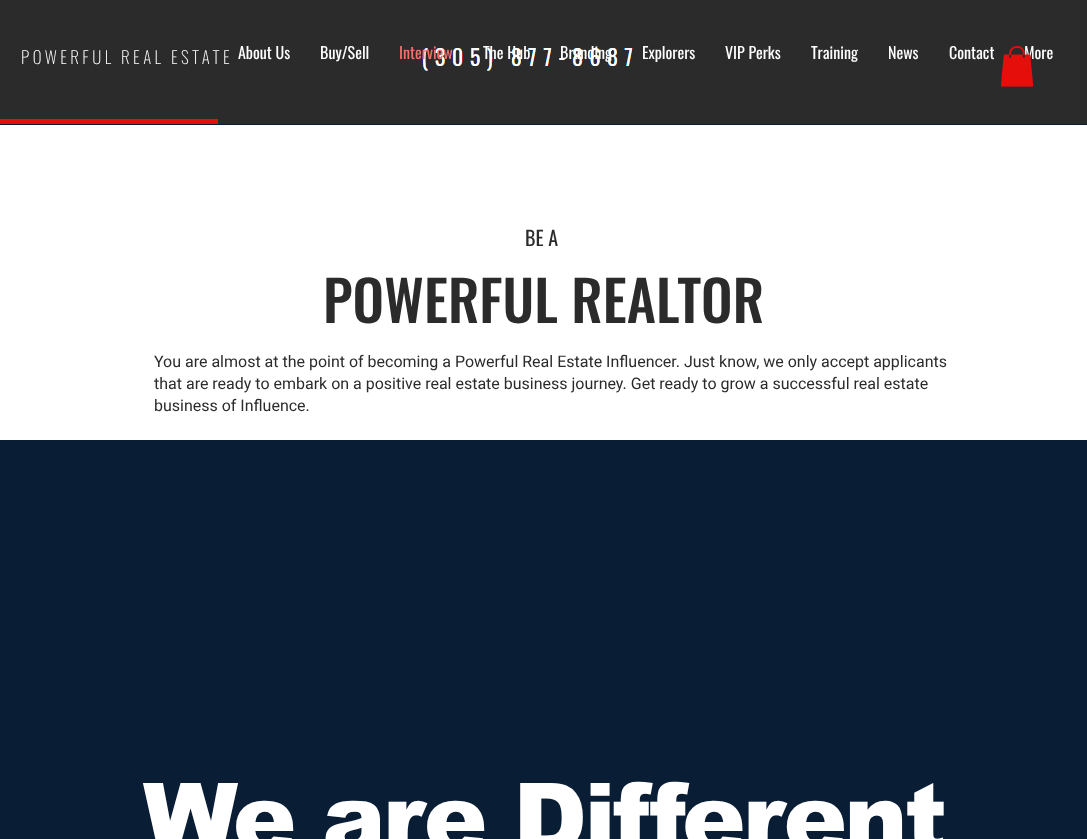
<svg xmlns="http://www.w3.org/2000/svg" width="1087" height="839">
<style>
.a{font:200 17px Oswald;letter-spacing:3.4px;fill:#fff}
.b{font:16px Oswald;fill:#fff}
.c{font:16px Oswald;fill:#f96f6c}
.d{font:20px Oswald;fill:#2b2b2b}
.e{font:500 56px Oswald;fill:#2b2b2b}
.f{font:16px Roboto;fill:#2b2b2b}
.g{font:900 95px arial;letter-spacing:-2.8px;fill:#fff}
</style>
<rect width="100%" height="100%" fill="#fff"/>
<path fill="#2b2b2b" d="M0 0h1087v124H0z"/>
<image href="1.png" x="422" y="48" width="211" height="23"/>
<path fill="#e50e0b" d="M0 119h218v5H0z"/>
<path fill="#091d35" d="M0 124h1087v1H0z"/>
<path fill="#091d35" d="M0 440h1087v399H0z"/>
<text class="a" x="21" y="64">POWERFUL REAL ESTATE</text>
<text class="b" x="238" y="59">About Us</text>
<text class="b" x="320" y="59">Buy/Sell</text>
<text class="c" x="399" y="59">Interview</text>
<text class="b" x="483" y="59">The Hub</text>
<text class="b" x="560" y="59">Branding</text>
<text class="b" x="642" y="59">Explorers</text>
<text class="b" x="725" y="59">VIP Perks</text>
<text class="b" x="811" y="59">Training</text>
<text class="b" x="888" y="59">News</text>
<text class="b" x="949" y="59">Contact</text>
<text class="b" x="1024" y="59">More</text>
<image href="2.png" x="1000" y="46" width="34" height="41"/>
<text class="d" x="525" y="246">BE A</text>
<text class="e" x="323" y="323">POWERFUL REALTOR</text>
<text class="f" x="154" y="367">You are almost at the point of becoming a Powerful Real Estate Influencer. Just know, we only accept applicants</text>
<text class="f" x="154" y="389">that are ready to embark on a positive real estate business journey. Get ready to grow a successful real estate</text>
<text class="f" x="154" y="411">business of Influence.</text>
<text class="g" x="143" y="851">We are Different</text>
</svg>
